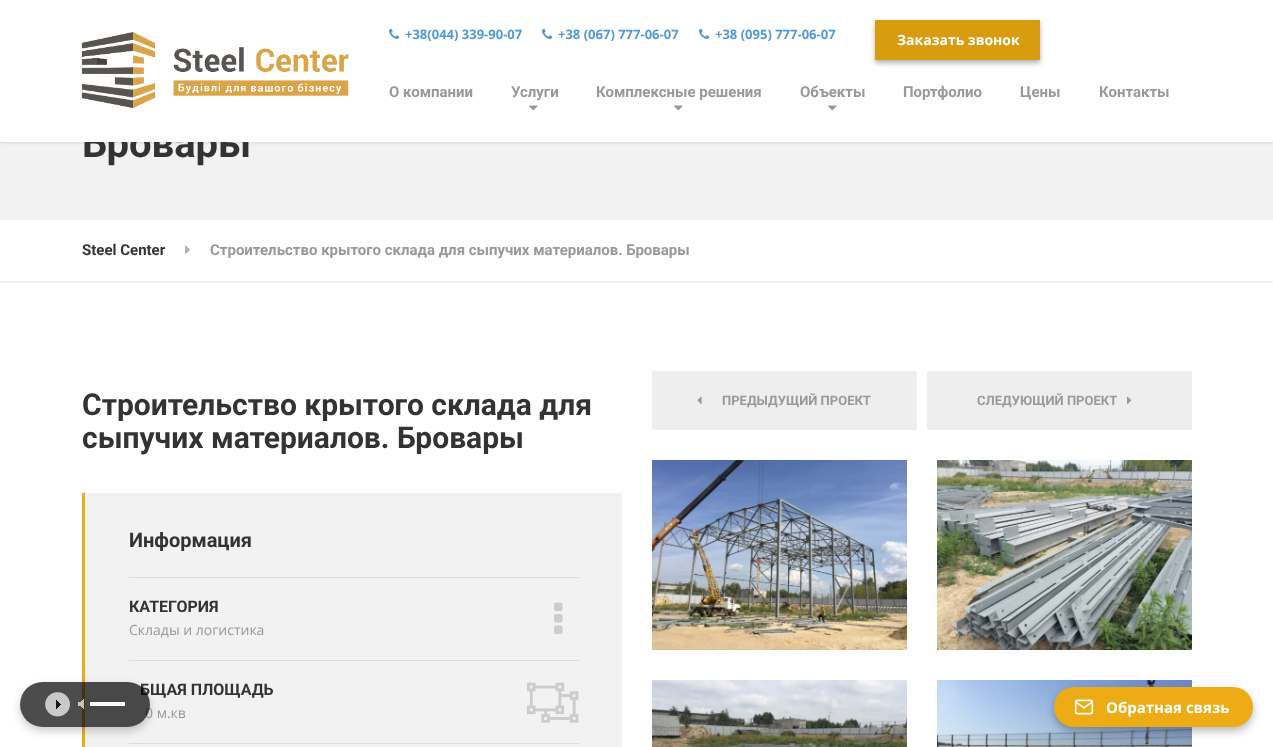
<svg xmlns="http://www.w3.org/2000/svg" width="1273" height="747">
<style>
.a{font:bold 40px Roboto;fill:#333}
.b{font:bold 15px Roboto;fill:#999}
.c{font:bold 14px Open Sans;fill:#fff}
.d{font:bold 13px Open Sans;fill:#539ad0}
.e{font:bold 15px Roboto;fill:#333}
.f{font:bold 30px Roboto;fill:#333}
.g{font:bold 20px Roboto;fill:#333}
.h{font:bold 16px Roboto;fill:#333}
.i{font:14px Open Sans;fill:#999}
.j{font:bold 13px Roboto;fill:#999}
.k{font:bold 15px Open Sans;fill:#fff}
</style>
<defs>
<clipPath id="clip1"><path d="M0 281h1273v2H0z"/></clipPath>
<clipPath id="clip2"><path d="M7 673h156v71h-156zm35.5 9h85c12.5 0 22.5 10 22.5 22.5c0 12.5-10 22.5-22.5 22.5h-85c-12.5 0-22.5-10-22.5-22.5c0-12.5 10-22.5 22.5-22.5z" clip-rule="evenodd"/></clipPath>
</defs>
<rect width="100%" height="100%" fill="#fff"/>
<path fill="#f2f2f2" d="M0 140h1273v79H0z"/>
<rect fill="#0000001a" filter="blur(1.5px)" y="1" width="1273" height="142" rx="2"/>
<path fill="#efefef" d="M0 219h1273v1H0z"/>
<g clip-path="url(#clip1)">
<path fill="#0000001a" filter="blur(1px)" d="M0 221h1273v61H0z"/>
</g>
<image href="4.png" x="185" y="245" width="5" height="9"/>
<path fill="#edac15" d="M82 493h3v254H82z"/>
<path fill="#f2f2f2" d="M85 493h537v254H85z"/>
<path fill="#ddd" d="M129 577h450v1H129z"/>
<image href="5.png" x="554" y="602" width="9" height="32"/>
<path fill="#ddd" d="M129 660h450v1H129z"/>
<image href="6.png" x="527" y="682" width="52" height="41"/>
<path fill="#ddd" d="M129 743h450v1H129z"/>
<rect fill="#eee" x="652" y="371" width="265" height="59" rx="2"/>
<image href="7.png" x="697" y="396" width="5" height="8"/>
<rect fill="#eee" x="927" y="371" width="265" height="59" rx="2"/>
<image href="8.png" x="1127" y="396" width="5" height="8"/>
<image href="9.png" x="652" y="460" width="255" height="190"/>
<image href="10.png" x="937" y="460" width="255" height="190"/>
<image href="11.png" x="652" y="680" width="255" height="67"/>
<image href="12.png" x="937" y="680" width="255" height="67"/>
<g clip-path="url(#clip2)">
<rect fill="#00000033" filter="blur(4px)" x="20" y="686" width="130" height="45" rx="22.5"/>
</g>
<rect fill="#00000047" filter="blur(4px)" x="1054" y="691" width="199" height="40" rx="20"/>
<rect fill="#edac15" x="1054" y="687" width="199" height="40" rx="20"/>
<image href="15.png" x="1074" y="699" width="20" height="16"/>
<text class="a" x="82" y="157">Бровары</text>
<path fill="#fff" d="M0 0h1273v140c0 1-1 2-2 2h-1269c-1 0-2-1-2-2z"/>
<image href="1.png" x="81" y="32" width="268" height="76"/>
<text class="b" x="1099" y="97">Контакты</text>
<text class="b" x="1020" y="97">Цены</text>
<text class="b" x="903" y="97">Портфолио</text>
<image href="3.png" x="828" y="105" width="9" height="6"/>
<text class="b" x="800" y="97">Объекты</text>
<image href="3.png" x="674" y="105" width="9" height="6"/>
<text class="b" x="596" y="97">Комплексные решения</text>
<image href="3.png" x="529" y="105" width="9" height="6"/>
<text class="b" x="511" y="97">Услуги</text>
<text class="b" x="389" y="97">О компании</text>
<path fill="#0000004d" filter="blur(2.5px)" d="M875 23h165v40H875z"/>
<path fill="#d89c11" d="M875 20h165v40H875z"/>
<text class="c" x="897" y="45">Заказать звонок</text>
<text class="d" x="715" y="39">+38 (095) 777-06-07</text>
<image href="2.png" x="699" y="28" width="11" height="11"/>
<text class="d" x="558" y="39">+38 (067) 777-06-07</text>
<image href="2.png" x="542" y="28" width="11" height="11"/>
<text class="d" x="405" y="39">+38(044) 339-90-07</text>
<image href="2.png" x="389" y="28" width="11" height="11"/>
<text class="e" x="82" y="255">Steel Center</text>
<text class="b" x="210" y="255">Строительство крытого склада для сыпучих материалов. Бровары</text>
<text class="f" x="82" y="415">Строительство крытого склада для</text>
<text class="f" x="82" y="448">сыпучих материалов. Бровары</text>
<text class="g" x="129" y="547">Информация</text>
<text class="h" x="129" y="612">КАТЕГОРИЯ</text>
<text class="i" x="129" y="635">Склады и логистика</text>
<text class="h" x="140" y="695">БЩАЯ ПЛОЩАДЬ</text>
<text class="i" x="145" y="718">0 м.кв</text>
<text class="j" x="722" y="405">ПРЕДЫДУЩИЙ ПРОЕКТ</text>
<text class="j" x="977" y="405">СЛЕДУЮЩИЙ ПРОЕКТ</text>
<rect fill="#000000b3" x="20" y="682" width="130" height="45" rx="22.5"/>
<image href="13.png" x="45" y="692" width="25" height="25"/>
<image href="14.png" x="78" y="699" width="6" height="10"/>
<path fill="#fbfbfb" d="M90 702h35v4H90z"/>
<text class="k" x="1106" y="713">Обратная связь</text>
</svg>
